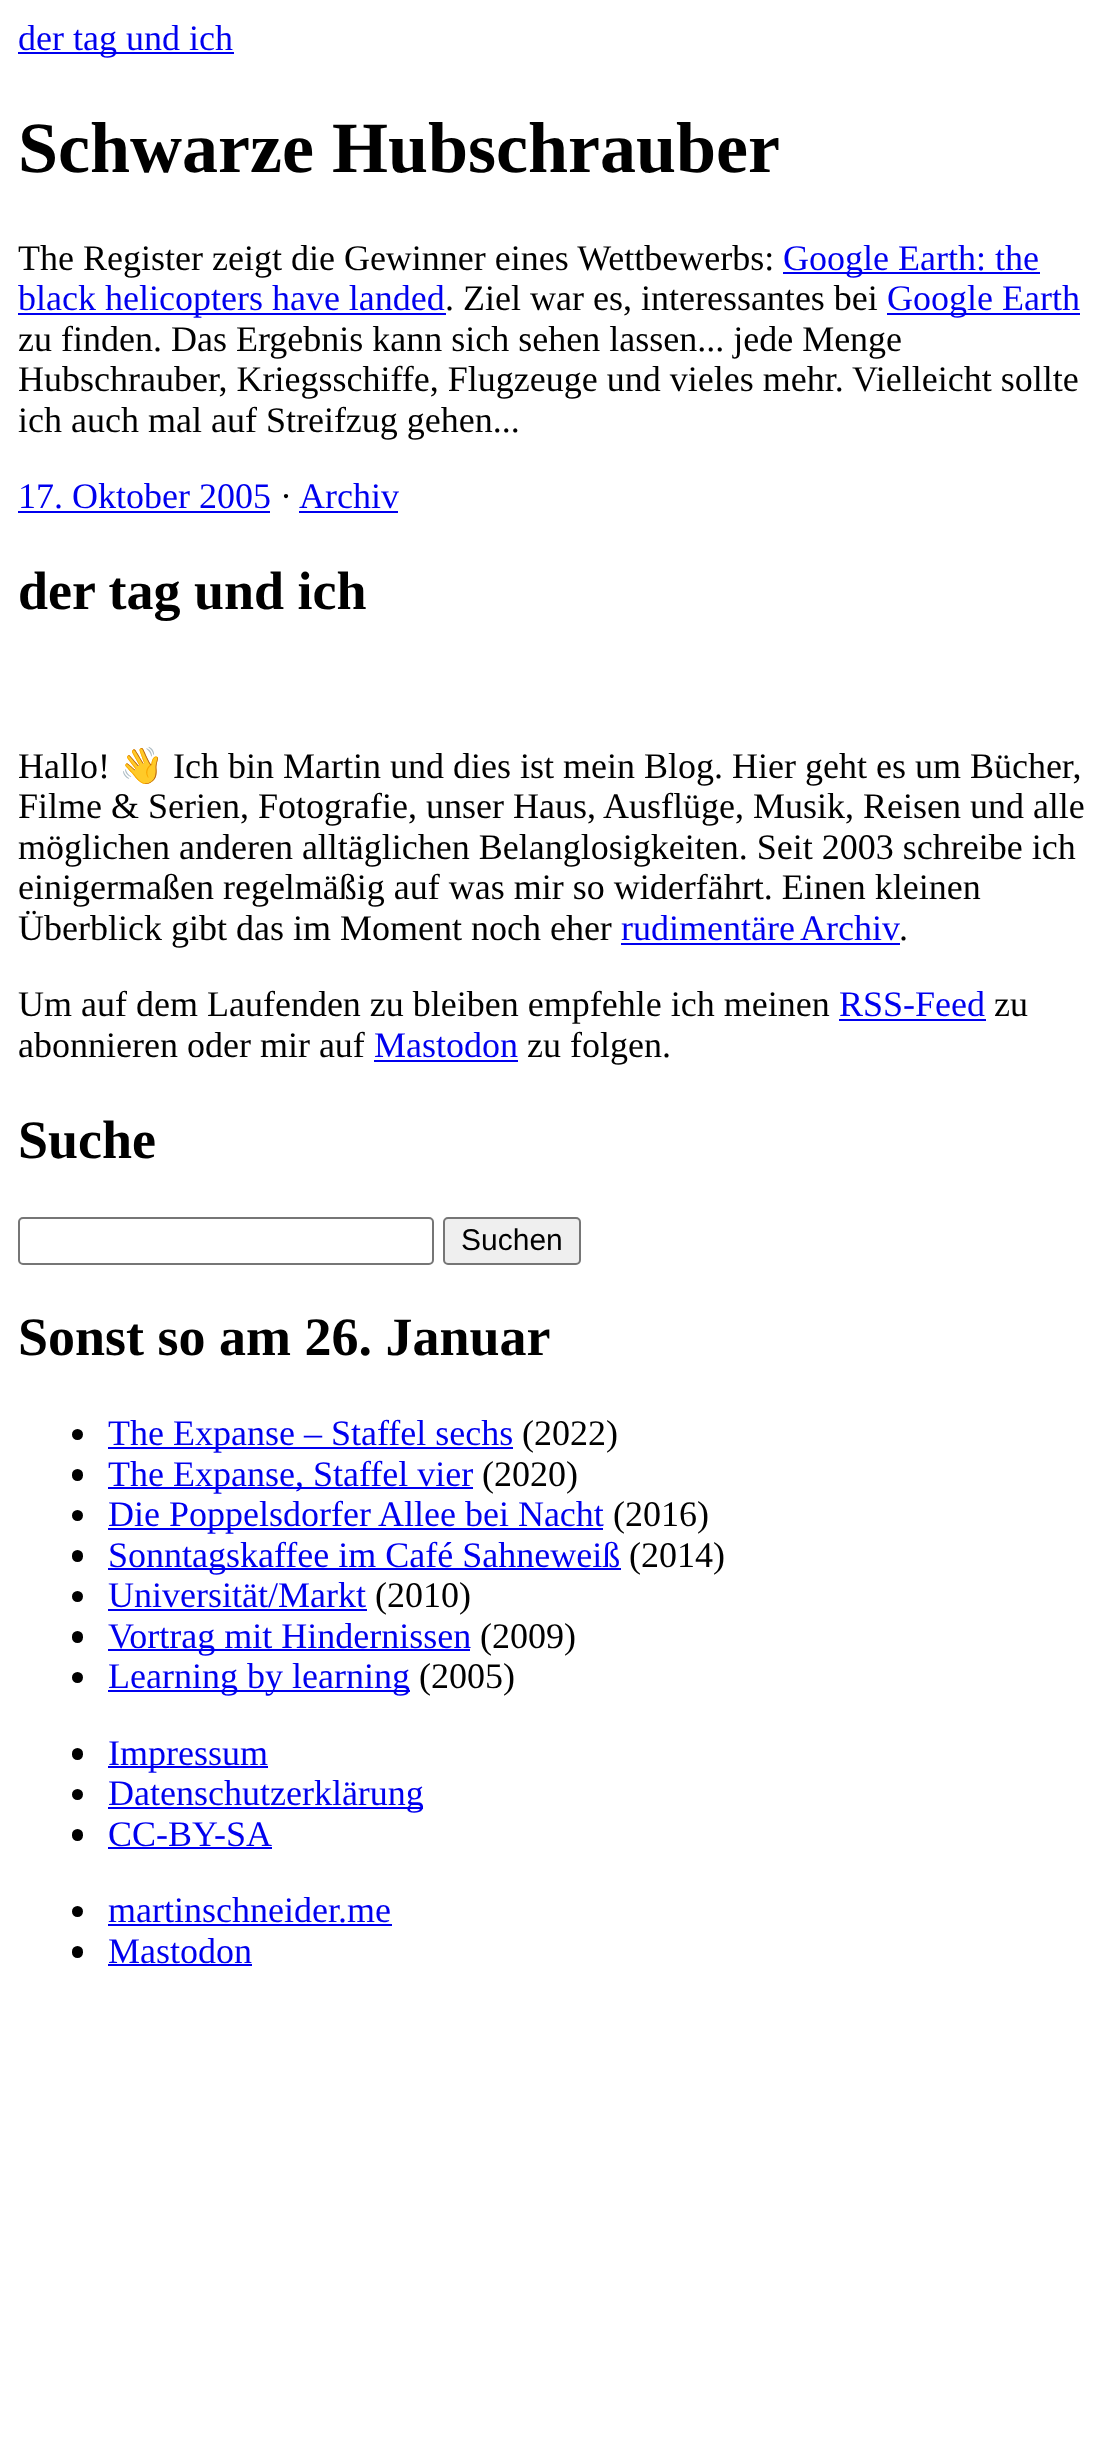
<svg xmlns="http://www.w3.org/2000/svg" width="1111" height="2449">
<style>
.a{font:36px Liberation Serif;fill:#00e}
.b{font:bold 72px Liberation Serif;fill:#000}
.c{font:36px Liberation Serif;fill:#000}
.d{font:bold 54px Liberation Serif;fill:#000}
.e{font:36px Noto Color Emoji;fill:#000}
.f{font:30px Liberation Sans;fill:#000}
</style>
<rect width="100%" height="100%" fill="#fff"/>
<path fill="#00e" d="M18 52h216v2H18z"/>
<path fill="#00e" d="M783 272h257v2H783z"/>
<path fill="#00e" d="M18 313h428v2H18z"/>
<path fill="#00e" d="M887 313h193v2H887z"/>
<path fill="#00e" d="M18 511h252v2H18z"/>
<path fill="#00e" d="M299 511h99v2H299z"/>
<path fill="#00e" d="M621 943h279v2H621z"/>
<path fill="#00e" d="M839 1019h147v2H839z"/>
<path fill="#00e" d="M374 1060h144v2H374z"/>
<rect fill="none" stroke="#767676" stroke-width="2" x="19" y="1218" width="414" height="46" rx="4"/>
<rect fill="#efefef" stroke="#767676" stroke-width="2" x="444" y="1218" width="136" height="46" rx="4"/>
<circle fill="#000" cx="77.5" cy="1434.5" r="5.5"/>
<path fill="#00e" d="M108 1447h405v2H108z"/>
<rect fill="#000" x="72" y="1469" width="11" height="12" rx="5.5"/>
<path fill="#00e" d="M108 1487h365v2H108z"/>
<circle fill="#000" cx="77.5" cy="1515.5" r="5.5"/>
<path fill="#00e" d="M108 1528h495v2H108z"/>
<rect fill="#000" x="72" y="1550" width="11" height="12" rx="5.5"/>
<path fill="#00e" d="M108 1568h513v2H108z"/>
<circle fill="#000" cx="77.5" cy="1596.5" r="5.5"/>
<path fill="#00e" d="M108 1609h259v2H108z"/>
<rect fill="#000" x="72" y="1631" width="11" height="12" rx="5.5"/>
<path fill="#00e" d="M108 1649h362v2H108z"/>
<circle fill="#000" cx="77.5" cy="1677.5" r="5.5"/>
<path fill="#00e" d="M108 1690h302v2H108z"/>
<rect fill="#000" x="72" y="1748" width="11" height="12" rx="5.5"/>
<path fill="#00e" d="M108 1766h160v2H108z"/>
<circle fill="#000" cx="77.5" cy="1794.5" r="5.5"/>
<path fill="#00e" d="M108 1807h315v2H108z"/>
<rect fill="#000" x="72" y="1829" width="11" height="12" rx="5.5"/>
<path fill="#00e" d="M108 1847h164v2H108z"/>
<circle fill="#000" cx="77.5" cy="1911.5" r="5.5"/>
<path fill="#00e" d="M108 1924h284v2H108z"/>
<rect fill="#000" x="72" y="1946" width="11" height="12" rx="5.5"/>
<path fill="#00e" d="M108 1964h144v2H108z"/>
<text class="a" x="18" y="50">der tag und ich</text>
<text class="b" x="18" y="172">Schwarze Hubschrauber</text>
<text class="c" x="18" y="270">The Register zeigt die Gewinner eines Wettbewerbs:</text>
<text class="a" x="783" y="270">Google Earth: the</text>
<text class="a" x="18" y="310">black helicopters have landed</text>
<text class="c" x="445" y="310">. Ziel war es, interessantes bei</text>
<text class="a" x="887" y="310">Google Earth</text>
<text class="c" x="18" y="351">zu finden. Das Ergebnis kann sich sehen lassen... jede Menge</text>
<text class="c" x="18" y="391">Hubschrauber, Kriegsschiffe, Flugzeuge und vieles mehr. Vielleicht sollte</text>
<text class="c" x="18" y="432">ich auch mal auf Streifzug gehen...</text>
<text class="a" x="18" y="508">17. Oktober 2005</text>
<text class="c" x="280" y="508">·</text>
<text class="a" x="299" y="508">Archiv</text>
<text class="d" x="18" y="609">der tag und ich</text>
<text class="c" x="18" y="778">Hallo!</text>
<text class="e" x="119" y="778">👋</text>
<text class="c" x="173" y="778">Ich bin Martin und dies ist mein Blog. Hier geht es um Bücher,</text>
<text class="c" x="18" y="818">Filme &amp; Serien, Fotografie, unser Haus, Ausflüge, Musik, Reisen und alle</text>
<text class="c" x="18" y="859">möglichen anderen alltäglichen Belanglosigkeiten. Seit 2003 schreibe ich</text>
<text class="c" x="18" y="899">einigermaßen regelmäßig auf was mir so widerfährt. Einen kleinen</text>
<text class="c" x="18" y="940">Überblick gibt das im Moment noch eher</text>
<text class="a" x="621" y="940" word-spacing="-2">rudimentäre Archiv</text>
<text class="c" x="899" y="940">.</text>
<text class="c" x="18" y="1016">Um auf dem Laufenden zu bleiben empfehle ich meinen</text>
<text class="a" x="839" y="1016">RSS-Feed</text>
<text class="c" x="994" y="1016">zu</text>
<text class="c" x="18" y="1057">abonnieren oder mir auf</text>
<text class="a" x="374" y="1057">Mastodon</text>
<text class="c" x="527" y="1057">zu folgen.</text>
<text class="d" x="18" y="1158">Suche</text>
<text class="f" x="461" y="1250">Suchen</text>
<text class="d" x="18" y="1355">Sonst so am 26. Januar</text>
<text class="a" x="108" y="1445">The Expanse – Staffel sechs</text>
<text class="c" x="522" y="1445">(2022)</text>
<text class="a" x="108" y="1486">The Expanse, Staffel vier</text>
<text class="c" x="482" y="1486">(2020)</text>
<text class="a" x="108" y="1526">Die Poppelsdorfer Allee bei Nacht</text>
<text class="c" x="613" y="1526">(2016)</text>
<text class="a" x="108" y="1567">Sonntagskaffee im Café Sahneweiß</text>
<text class="c" x="629" y="1567">(2014)</text>
<text class="a" x="108" y="1607">Universität/Markt</text>
<text class="c" x="375" y="1607">(2010)</text>
<text class="a" x="108" y="1648">Vortrag mit Hindernissen</text>
<text class="c" x="480" y="1648">(2009)</text>
<text class="a" x="108" y="1688">Learning by learning</text>
<text class="c" x="419" y="1688">(2005)</text>
<text class="a" x="108" y="1765">Impressum</text>
<text class="a" x="108" y="1805">Datenschutzerklärung</text>
<text class="a" x="108" y="1846">CC-BY-SA</text>
<text class="a" x="108" y="1922">martinschneider.me</text>
<text class="a" x="108" y="1963">Mastodon</text>
</svg>
